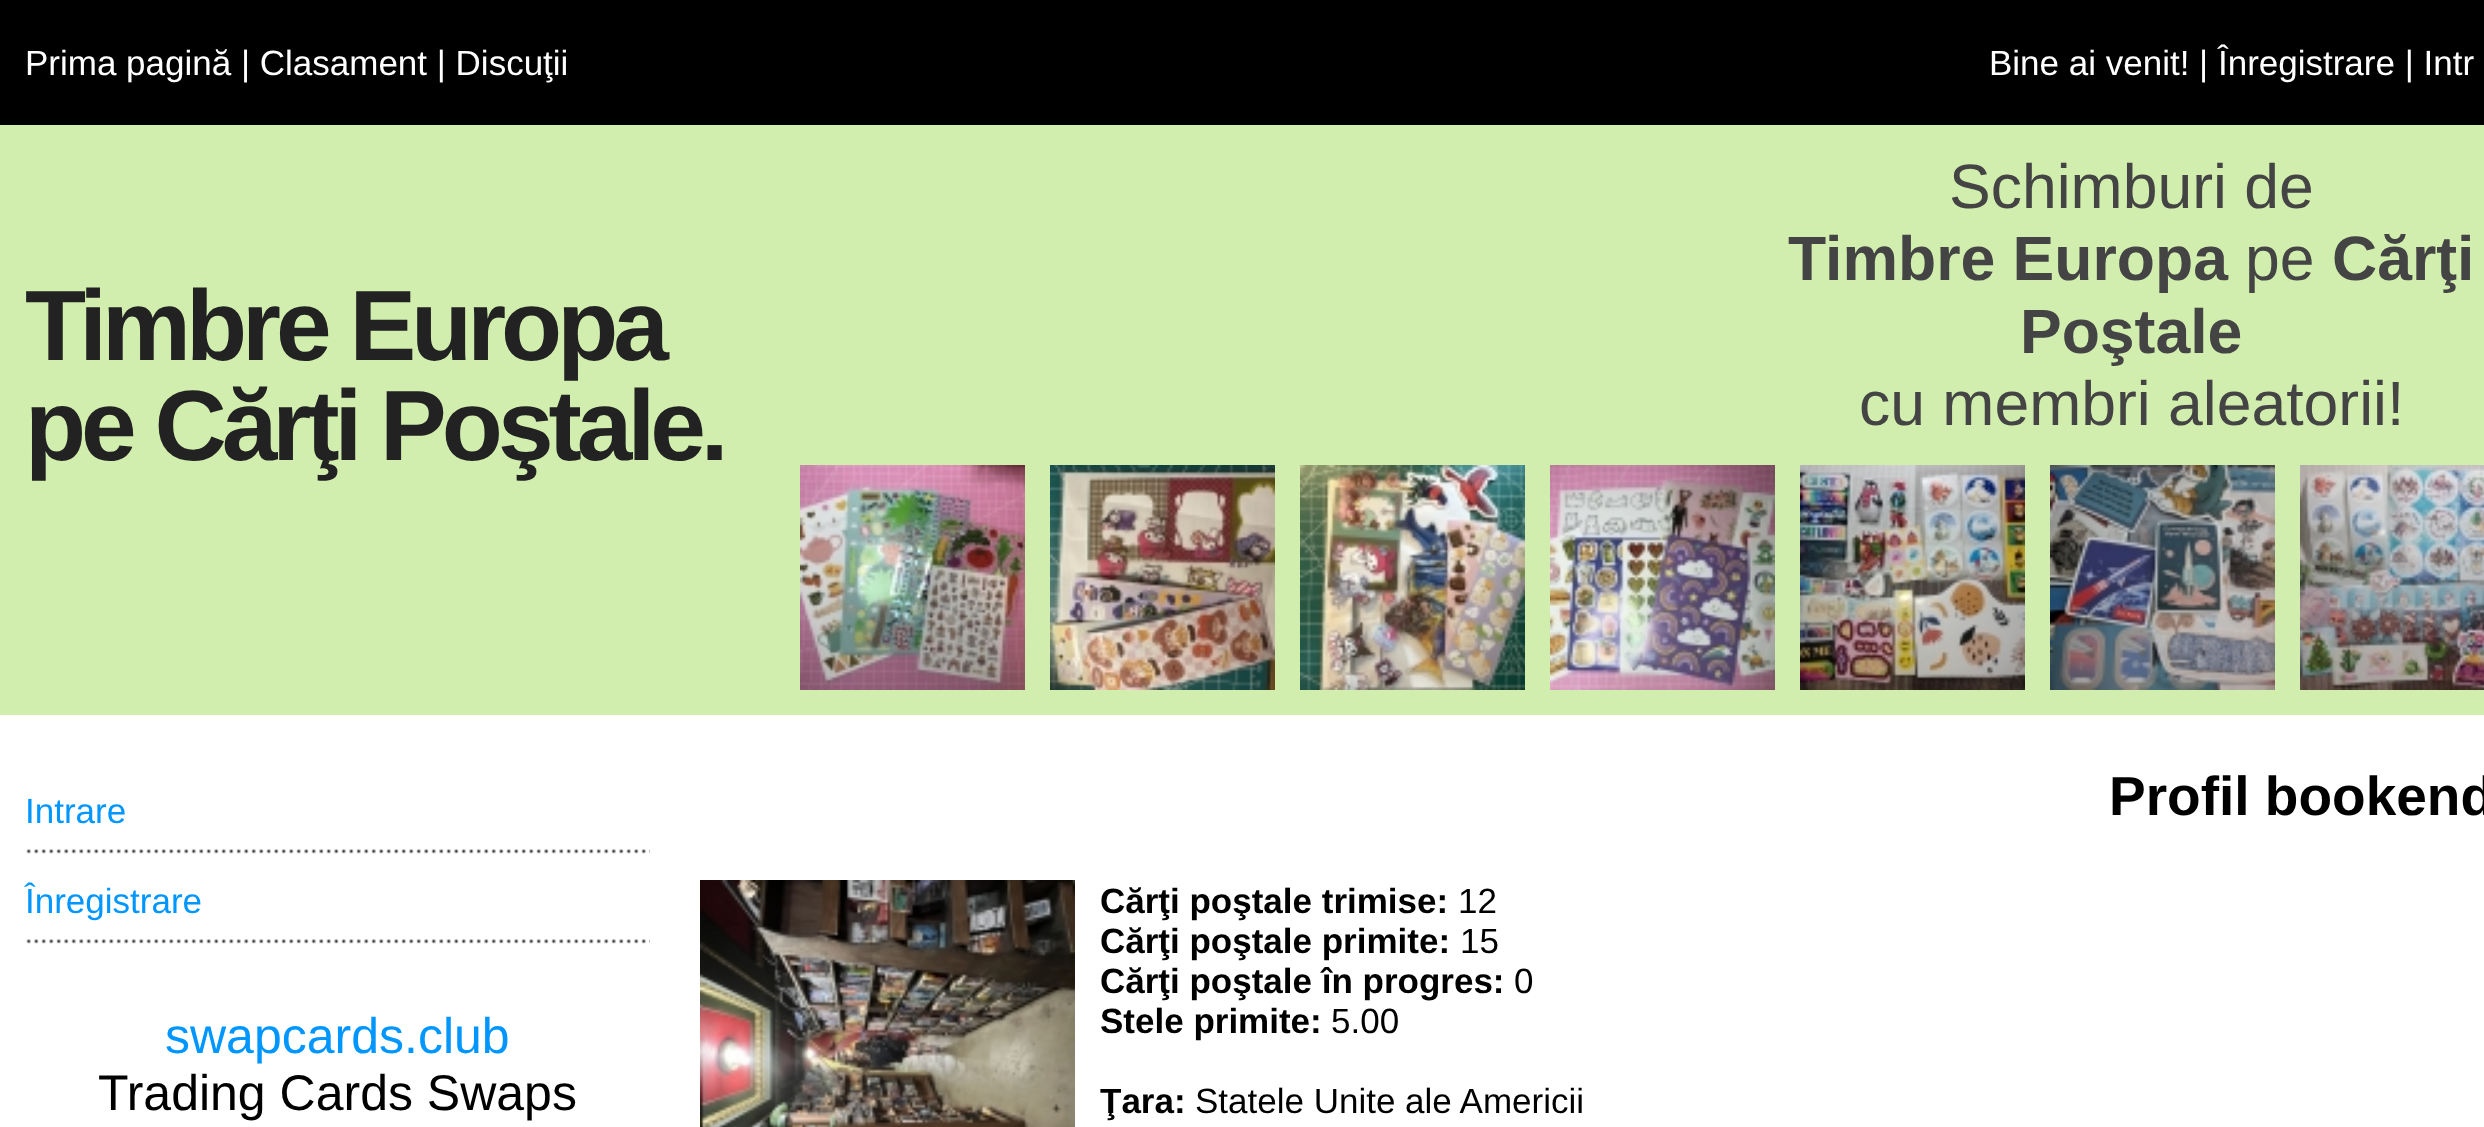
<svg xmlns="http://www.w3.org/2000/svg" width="2484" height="1127">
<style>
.a{font:35px Liberation Sans;fill:#fff}
.b{font:bold 100px Liberation Sans;letter-spacing:-5px;fill:#222}
.c{font:62.5px Liberation Sans;fill:#444}
.d{font:bold 62.5px Liberation Sans;fill:#444}
.e{font:35px Liberation Sans;fill:#0096ff}
.f{font:50px Liberation Sans;fill:#0096ff}
.g{font:50px Liberation Sans;fill:#000}
.h{font:bold 55px Liberation Sans;fill:#000}
.i{font:bold 35px Liberation Sans;fill:#000}
.j{font:35px Liberation Sans;fill:#000}
</style>
<rect width="100%" height="100%" fill="#fff"/>
<path fill="#000" d="M0 0h2484v125H0z"/>
<path fill="#d2eeae" d="M0 125h2484v590H0z"/>
<image href="1.png" x="800" y="465" width="225" height="225"/>
<image href="2.png" x="1050" y="465" width="225" height="225"/>
<image href="3.png" x="1300" y="465" width="225" height="225"/>
<image href="4.png" x="1550" y="465" width="225" height="225"/>
<image href="5.png" x="1800" y="465" width="225" height="225"/>
<image href="6.png" x="2050" y="465" width="225" height="225"/>
<image href="7.png" x="2300" y="465" width="184" height="225"/>
<image href="8.png" x="26" y="849" width="624" height="5"/>
<image href="8.png" x="26" y="939" width="624" height="5"/>
<image href="9.png" x="700" y="880" width="375" height="247"/>
<text class="a" x="25" y="75">Prima pagină | Clasament | Discuţii</text>
<text class="a" x="1989" y="75">Bine ai venit! | Înregistrare | Intr</text>
<text class="b" x="25" y="360">Timbre Europa</text>
<text class="b" x="25" y="460">pe Cărţi Poştale.</text>
<text class="c" x="1949" y="208">Schimburi de</text>
<text class="d" x="1788" y="280">Timbre Europa</text>
<text class="c" x="2245" y="280">pe</text>
<text class="d" x="2332" y="280">Cărţi</text>
<text class="d" x="2020" y="353">Poştale</text>
<text class="c" x="1859" y="425">cu membri aleatorii!</text>
<text class="e" x="25" y="823">Intrare</text>
<text class="e" x="25" y="913">Înregistrare</text>
<text class="f" x="165" y="1053">swapcards.club</text>
<text class="g" x="98" y="1110">Trading Cards Swaps</text>
<text class="h" x="2109" y="815">Profil bookend</text>
<text class="i" x="1100" y="913">Cărţi poştale trimise:</text>
<text class="j" x="1458" y="913">12</text>
<text class="i" x="1100" y="953">Cărţi poştale primite:</text>
<text class="j" x="1460" y="953">15</text>
<text class="i" x="1100" y="993">Cărţi poştale în progres:</text>
<text class="j" x="1514" y="993">0</text>
<text class="i" x="1100" y="1033">Stele primite:</text>
<text class="j" x="1331" y="1033">5.00</text>
<text class="i" x="1100" y="1113">Ţara:</text>
<text class="j" x="1195" y="1113">Statele Unite ale Americii</text>
</svg>
